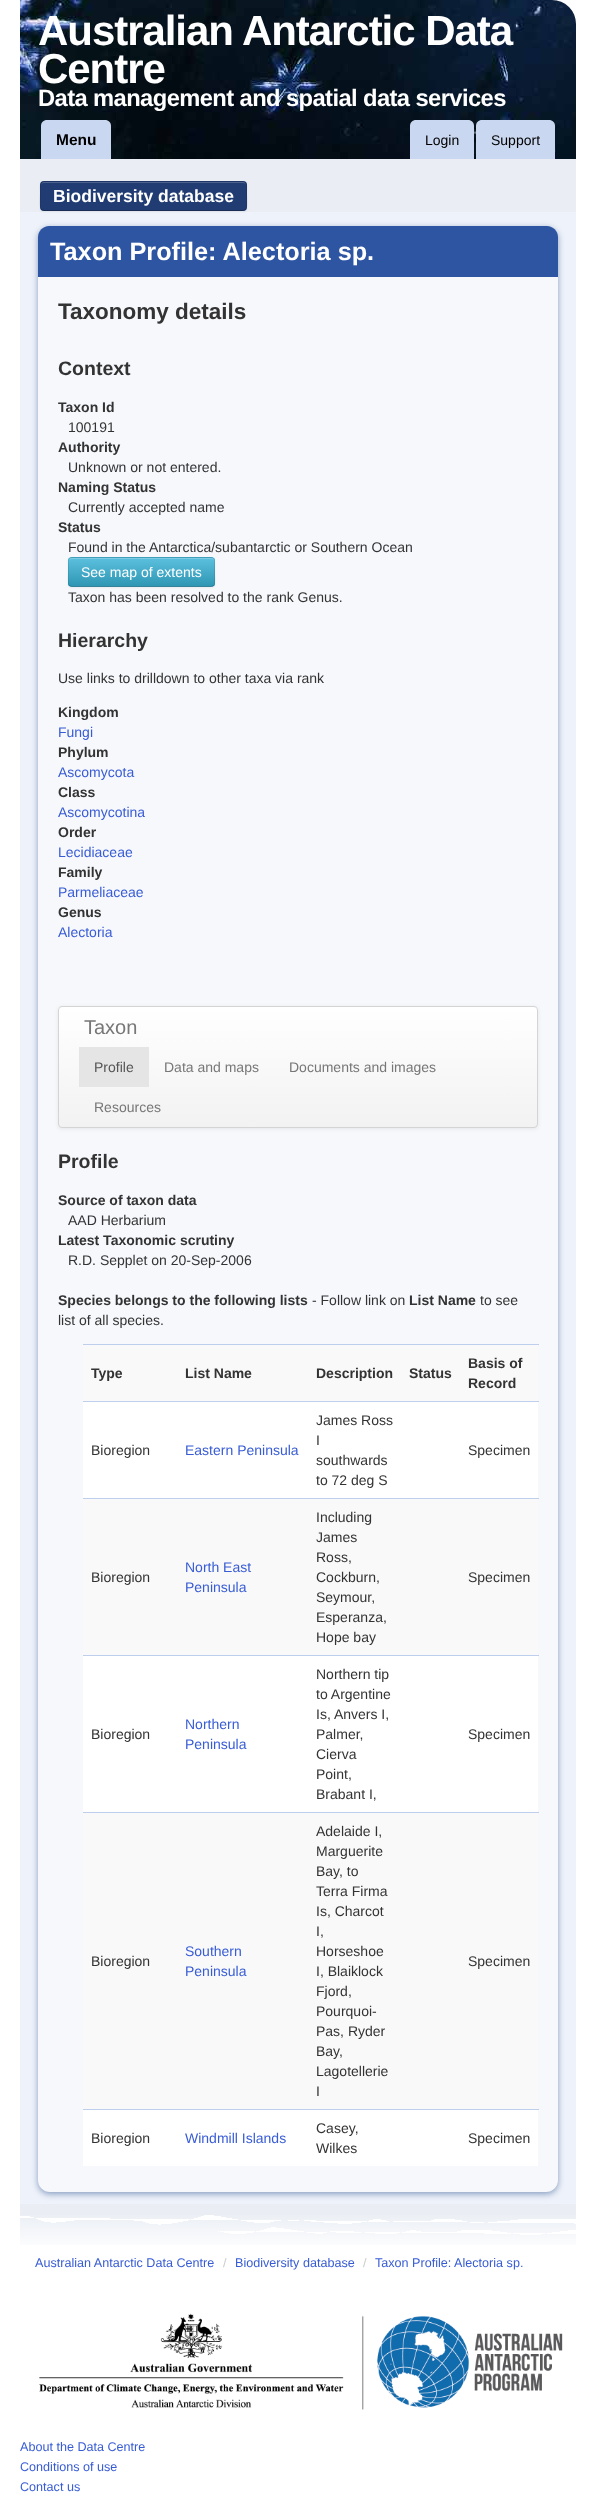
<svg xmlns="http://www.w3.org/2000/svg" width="596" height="2497">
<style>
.a{font:bold 42px Liberation Sans;letter-spacing:-1.05px;fill:#fff}
.b{font:bold 23.75px Liberation Sans;letter-spacing:-0.6px;fill:#fff}
.c{font:bold 15.5px Liberation Sans;fill:#000}
.d{font:14px Liberation Sans;fill:#000}
.e{font:bold 17.5px Liberation Sans;fill:#fff}
.f{font:bold 25.25px Liberation Sans;fill:#fff}
.g{font:bold 22.5px Liberation Sans;fill:#333}
.h{font:bold 19.5px Liberation Sans;fill:#333}
.i{font:bold 14px Liberation Sans;fill:#333}
.j{font:14px Liberation Sans;fill:#333}
.k{font:14px Liberation Sans;fill:#fff}
.l{font:14px Liberation Sans;fill:#385cd5}
.m{font:20px Liberation Sans;fill:#777}
.n{font:14px Liberation Sans;fill:#555}
.o{font:14px Liberation Sans;fill:#777}
.p{font:12.6px Liberation Sans;fill:#385cd5}
.q{font:12.6px Liberation Sans;fill:#ccc}
</style>
<defs>
<clipPath id="clip1"><rect x="68" y="557" width="147" height="30" rx="4"/></clipPath>
<linearGradient id="g1" gradientUnits="userSpaceOnUse" x1="142" y1="558" x2="142" y2="586"><stop offset="0" stop-color="#5bc0de"/><stop offset="1" stop-color="#2f96b4"/></linearGradient>
<clipPath id="clip2"><rect x="58" y="1006" width="480" height="122" rx="4"/></clipPath>
<linearGradient id="g2" gradientUnits="userSpaceOnUse" x1="298" y1="1007" x2="298" y2="1127"><stop offset="0" stop-color="#fff"/><stop offset="1" stop-color="#f2f2f2"/></linearGradient>
</defs>
<rect width="100%" height="100%" fill="#fff"/>
<image href="1.png" x="20" y="0" width="556" height="159"/>
<path fill="#cad7f0" d="M47 120h58c3.5 0 6 2.5 6 6v33h-70v-33c0-3.5 2.5-6 6-6z"/>
<path fill="#cad7f0" d="M416 120h52c3.5 0 6 2.5 6 6v33h-64v-33c0-3.5 2.5-6 6-6z"/>
<path fill="#cad7f0" d="M482 120h67c3.5 0 6 2.5 6 6v33h-79v-33c0-3.5 2.5-6 6-6z"/>
<path fill="#eaeef4" d="M20 159h556v53H20z"/>
<path fill="#eef2fa" d="M20 212h556v1992H20z"/>
<rect fill="#0000000d" filter="blur(1px)" x="40" y="182" width="207" height="30" rx="4"/>
<rect fill="#203c72" x="40" y="181" width="207" height="30" rx="4"/>
<path fill="#4d638e" d="M44 183h199c2 0 3 1 3 3c0-2-1-4-3-4h-199c-2 0-3 2-3 4c0-2 1-3 3-3z"/>
<path fill="none" stroke="#00000040" d="M245.5 209.5c-.5 .5-1.5 1-2.5 1h-199c-1 0-2-.5-2.5-1"/>
<path fill="none" stroke="#0000001a" d="M41.5 209.5c-2.5-2.5-1-14-1-17c0-3-1.5-11 3.5-11h199c5 0 3.5 8 3.5 11c0 3 1.5 14.5-1 17"/>
<rect fill="#869cbf" filter="blur(3px)" x="38" y="228" width="520" height="1966" rx="12"/>
<rect fill="#f6f8fc" x="38" y="226" width="520" height="1966" rx="12"/>
<path fill="#2e55a2" d="M49 226h498c6 0 11 5 11 11v40h-520v-40c0-6 5-11 11-11z"/>
<rect fill="#0000000d" filter="blur(1px)" x="68" y="558" width="147" height="30" rx="4"/>
<rect fill="#49afcd" x="68" y="557" width="147" height="30" rx="4"/>
<g clip-path="url(#clip1)">
<path fill="url(#g1)" d="M68 558h147v28H68z"/>
</g>
<path fill="#7bcce4" d="M72 559h139c2 0 3 1 3 3v-1c0-2-1-3-3-3h-139c-2 0-3 1-3 3v1c0-2 1-3 3-3z"/>
<path fill="none" stroke="#00000040" d="M213.5 585.5c-.5 .5-1.5 1-2.5 1h-139c-1 0-2-.5-2.5-1"/>
<path fill="none" stroke="#0000001a" d="M69.5 585.5c-2-2-1-10.5-1-13.5v-7.5c0-2.5-.5-7 3.5-7h139c4 0 3.5 4.5 3.5 7v7.5c0 3 1 11.5-1 13.5"/>
<rect fill="#00000012" filter="blur(2px)" x="58" y="1007" width="480" height="122" rx="4"/>
<g clip-path="url(#clip2)">
<path fill="url(#g2)" d="M58 1007h480v120H58z"/>
</g>
<rect fill="none" stroke="#d4d4d4" x="58.5" y="1006.5" width="479" height="121" rx="3.5"/>
<path fill="#e5e5e5" d="M79 1047h70v40H79z"/>
<path fill="#fff" d="M83 1402h455v764H83z"/>
<path fill="#f9f9f9" d="M83 1345h455v56H83z"/>
<path fill="#beceed" d="M83 1344h456v1H83z"/>
<path fill="#beceed" d="M83 1401h456v1H83z"/>
<path fill="#f9f9f9" d="M83 1499h455v156H83z"/>
<path fill="#beceed" d="M83 1498h456v1H83z"/>
<path fill="#beceed" d="M83 1655h456v1H83z"/>
<path fill="#f9f9f9" d="M83 1813h455v296H83z"/>
<path fill="#beceed" d="M83 1812h456v1H83z"/>
<path fill="#beceed" d="M83 2109h456v1H83z"/>
<path fill="#eaeef4" d="M20 2204h556v41H20z"/>
<image href="2.png" x="20" y="2215" width="556" height="30"/>
<image href="3.png" x="39" y="2313" width="524" height="97"/>
<text class="a" x="38" y="45">Australian Antarctic Data</text>
<text class="a" x="38" y="83">Centre</text>
<text class="b" x="38" y="106">Data management and spatial data services</text>
<text class="c" x="56" y="145">Menu</text>
<text class="d" x="425" y="145">Login</text>
<text class="d" x="491" y="145">Support</text>
<text class="e" x="53" y="202">Biodiversity database</text>
<text class="f" x="50" y="260">Taxon Profile: Alectoria sp.</text>
<text class="g" x="58" y="319">Taxonomy details</text>
<text class="h" x="58" y="375">Context</text>
<text class="i" x="58" y="412">Taxon Id</text>
<text class="j" x="68" y="432">100191</text>
<text class="i" x="58" y="452">Authority</text>
<text class="j" x="68" y="472">Unknown or not entered.</text>
<text class="i" x="58" y="492">Naming Status</text>
<text class="j" x="68" y="512">Currently accepted name</text>
<text class="i" x="58" y="532">Status</text>
<text class="j" x="68" y="552">Found in the Antarctica/subantarctic or Southern Ocean</text>
<text class="k" x="81" y="577">See map of extents</text>
<text class="j" x="68" y="602">Taxon has been resolved to the rank Genus.</text>
<text class="h" x="58" y="647">Hierarchy</text>
<text class="j" x="58" y="683">Use links to drilldown to other taxa via rank</text>
<text class="i" x="58" y="717">Kingdom</text>
<text class="l" x="58" y="737">Fungi</text>
<text class="i" x="58" y="757">Phylum</text>
<text class="l" x="58" y="777">Ascomycota</text>
<text class="i" x="58" y="797">Class</text>
<text class="l" x="58" y="817">Ascomycotina</text>
<text class="i" x="58" y="837">Order</text>
<text class="l" x="58" y="857">Lecidiaceae</text>
<text class="i" x="58" y="877">Family</text>
<text class="l" x="58" y="897">Parmeliaceae</text>
<text class="i" x="58" y="917">Genus</text>
<text class="l" x="58" y="937">Alectoria</text>
<text class="m" x="84" y="1034">Taxon</text>
<text class="n" x="94" y="1072">Profile</text>
<text class="o" x="164" y="1072">Data and maps</text>
<text class="o" x="289" y="1072">Documents and images</text>
<text class="o" x="94" y="1112">Resources</text>
<text class="h" x="58" y="1168">Profile</text>
<text class="i" x="58" y="1205">Source of taxon data</text>
<text class="j" x="68" y="1225">AAD Herbarium</text>
<text class="i" x="58" y="1245">Latest Taxonomic scrutiny</text>
<text class="j" x="68" y="1265">R.D. Sepplet on 20-Sep-2006</text>
<text class="i" x="58" y="1305">Species belongs to the following lists</text>
<text class="j" x="312" y="1305">- Follow link on</text>
<text class="i" x="409" y="1305">List Name</text>
<text class="j" x="480" y="1305">to see</text>
<text class="j" x="58" y="1325">list of all species.</text>
<text class="i" x="91" y="1378">Type</text>
<text class="i" x="185" y="1378">List Name</text>
<text class="i" x="316" y="1378">Description</text>
<text class="i" x="409" y="1378">Status</text>
<text class="i" x="468" y="1368">Basis of</text>
<text class="i" x="468" y="1388">Record</text>
<text class="j" x="91" y="1455">Bioregion</text>
<text class="l" x="185" y="1455">Eastern Peninsula</text>
<text class="j" x="316" y="1425">James Ross</text>
<text class="j" x="316" y="1445">I</text>
<text class="j" x="316" y="1465">southwards</text>
<text class="j" x="316" y="1485">to 72 deg S</text>
<text class="j" x="468" y="1455">Specimen</text>
<text class="j" x="91" y="1582">Bioregion</text>
<text class="l" x="185" y="1572">North East</text>
<text class="l" x="185" y="1592">Peninsula</text>
<text class="j" x="316" y="1522">Including</text>
<text class="j" x="316" y="1542">James</text>
<text class="j" x="316" y="1562">Ross,</text>
<text class="j" x="316" y="1582">Cockburn,</text>
<text class="j" x="316" y="1602">Seymour,</text>
<text class="j" x="316" y="1622">Esperanza,</text>
<text class="j" x="316" y="1642">Hope bay</text>
<text class="j" x="468" y="1582">Specimen</text>
<text class="j" x="91" y="1739">Bioregion</text>
<text class="l" x="185" y="1729">Northern</text>
<text class="l" x="185" y="1749">Peninsula</text>
<text class="j" x="316" y="1679">Northern tip</text>
<text class="j" x="316" y="1699">to Argentine</text>
<text class="j" x="316" y="1719">Is, Anvers I,</text>
<text class="j" x="316" y="1739">Palmer,</text>
<text class="j" x="316" y="1759">Cierva</text>
<text class="j" x="316" y="1779">Point,</text>
<text class="j" x="316" y="1799">Brabant I,</text>
<text class="j" x="468" y="1739">Specimen</text>
<text class="j" x="91" y="1966">Bioregion</text>
<text class="l" x="185" y="1956">Southern</text>
<text class="l" x="185" y="1976">Peninsula</text>
<text class="j" x="316" y="1836">Adelaide I,</text>
<text class="j" x="316" y="1856">Marguerite</text>
<text class="j" x="316" y="1876">Bay, to</text>
<text class="j" x="316" y="1896">Terra Firma</text>
<text class="j" x="316" y="1916">Is, Charcot</text>
<text class="j" x="316" y="1936">I,</text>
<text class="j" x="316" y="1956">Horseshoe</text>
<text class="j" x="316" y="1976">I, Blaiklock</text>
<text class="j" x="316" y="1996">Fjord,</text>
<text class="j" x="316" y="2016">Pourquoi-</text>
<text class="j" x="316" y="2036">Pas, Ryder</text>
<text class="j" x="316" y="2056">Bay,</text>
<text class="j" x="316" y="2076">Lagotellerie</text>
<text class="j" x="316" y="2096">I</text>
<text class="j" x="468" y="1966">Specimen</text>
<text class="j" x="91" y="2143">Bioregion</text>
<text class="l" x="185" y="2143">Windmill Islands</text>
<text class="j" x="316" y="2133">Casey,</text>
<text class="j" x="316" y="2153">Wilkes</text>
<text class="j" x="468" y="2143">Specimen</text>
<text class="p" x="35" y="2267">Australian Antarctic Data Centre</text>
<text class="q" x="223" y="2267">/</text>
<text class="p" x="235" y="2267">Biodiversity database</text>
<text class="q" x="363" y="2267">/</text>
<text class="p" x="375" y="2267">Taxon Profile: Alectoria sp.</text>
<text class="p" x="20" y="2451">About the Data Centre</text>
<text class="p" x="20" y="2471">Conditions of use</text>
<text class="p" x="20" y="2491">Contact us</text>
</svg>
